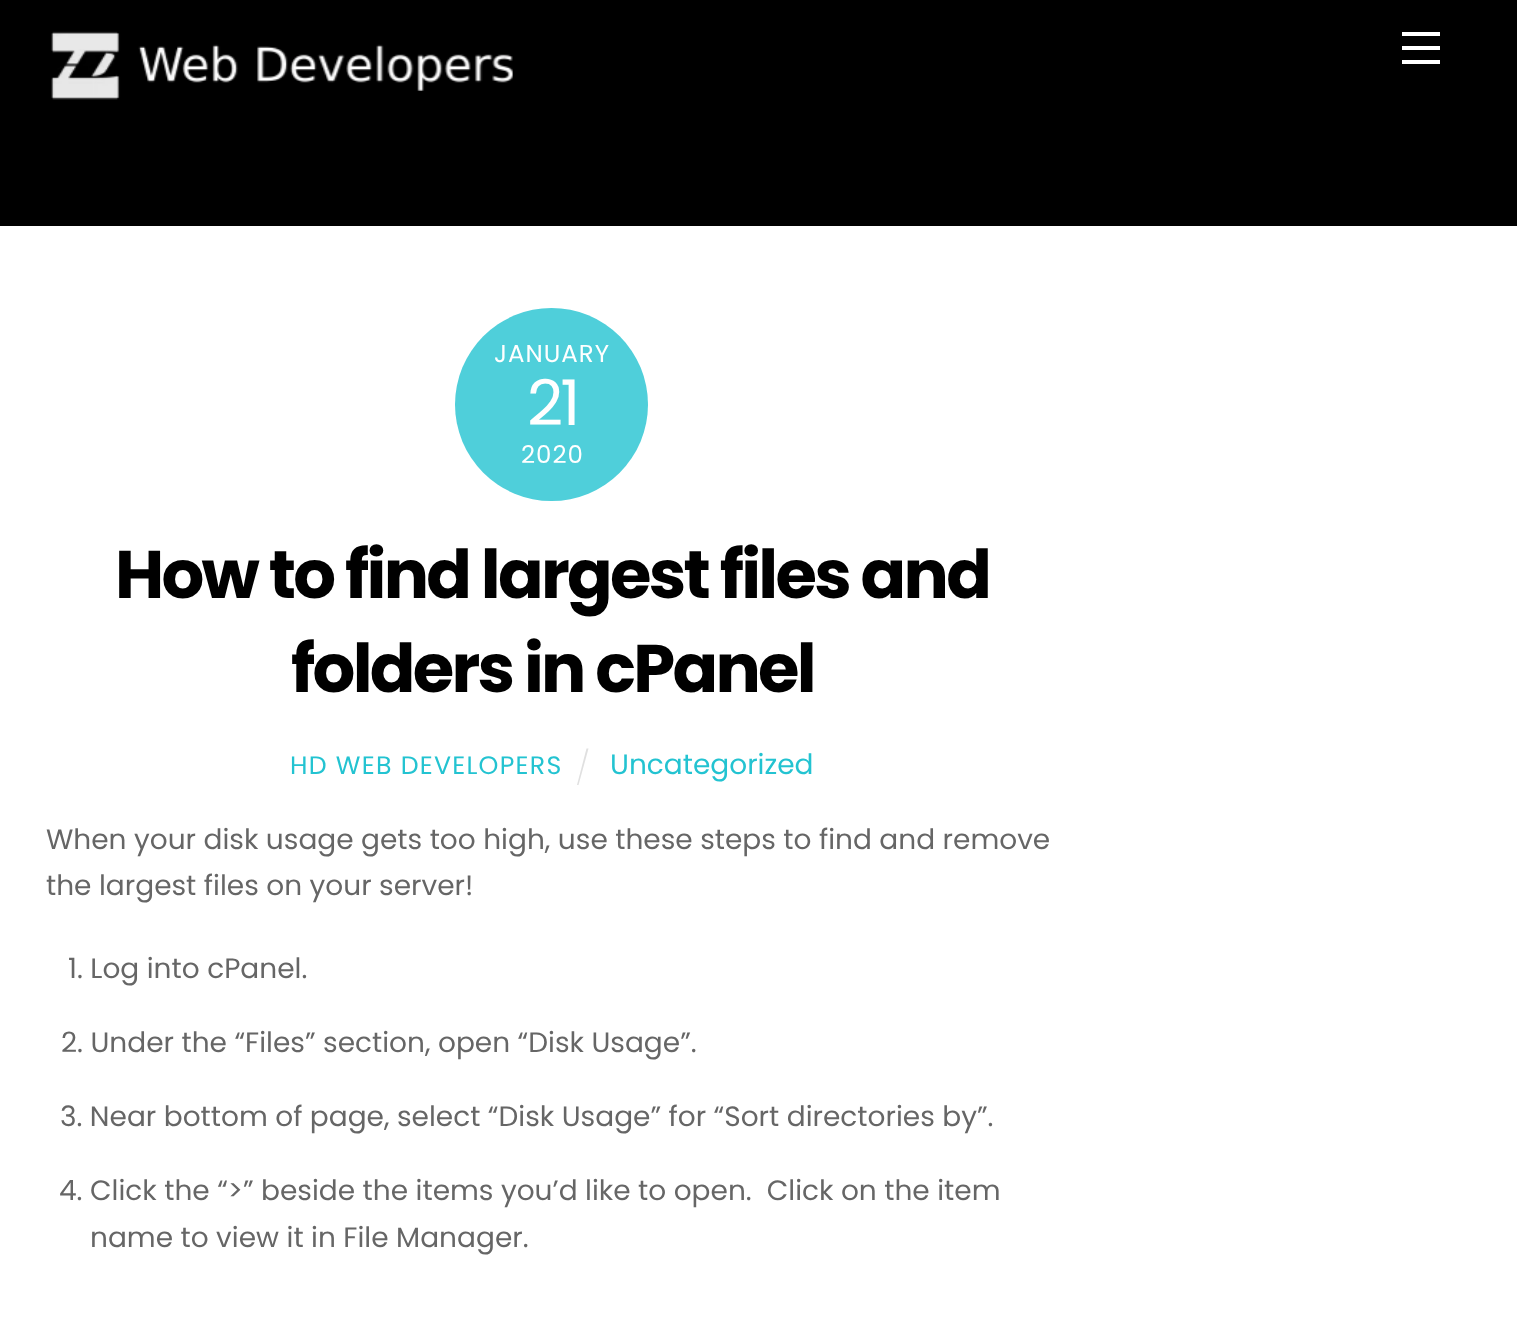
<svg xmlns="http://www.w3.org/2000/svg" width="1517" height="1342">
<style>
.a{font:24.5px Poppins;letter-spacing:1px;fill:#fff}
.b{font:63px Poppins;letter-spacing:-3px;fill:#fff}
.c{font:bold 67.25px Poppins;letter-spacing:-2.7px;fill:#000}
.d{font:25.25px Poppins;letter-spacing:1.25px;fill:#23c3d1}
.e{font:28px Poppins;fill:#23c3d1}
.f{font:28px Poppins;fill:#666}
</style>
<rect width="100%" height="100%" fill="#fff"/>
<path fill="#000" d="M0 0h1517v226H0z"/>
<image href="1.png" x="51" y="31" width="462" height="69"/>
<path fill="#fff" d="M1402 60h38v4H1402z"/>
<path fill="#fff" d="M1402 32h38v4H1402z"/>
<path fill="#fff" d="M1402 46h38v4H1402z"/>
<circle fill="#4fcfda" cx="551.5" cy="404.5" r="96.5"/>
<path fill="#e0e0e0" d="M586.5 748.5h2l-10 36.5h-1.5z"/>
<text class="a" x="494" y="362">JANUARY</text>
<text class="b" x="527" y="425">21</text>
<text class="a" x="521" y="463">2020</text>
<text class="c" x="115" y="598">How to find largest files and</text>
<text class="c" x="291" y="692">folders in cPanel</text>
<text class="d" x="290" y="774">HD WEB DEVELOPERS</text>
<text class="e" x="610" y="774">Uncategorized</text>
<text class="f" x="46" y="849">When your disk usage gets too high, use these steps to find and remove</text>
<text class="f" x="46" y="895">the largest files on your server!</text>
<text class="f" x="68" y="978">1. Log into cPanel.</text>
<text class="f" x="61" y="1052">2. Under the “Files” section, open “Disk Usage”.</text>
<text class="f" x="60" y="1126">3. Near bottom of page, select “Disk Usage” for “Sort directories by”.</text>
<text class="f" xml:space="preserve" x="59" y="1200">4. Click the “&gt;” beside the items you’d like to open.  Click on the item</text>
<text class="f" x="90" y="1247">name to view it in File Manager.</text>
</svg>
